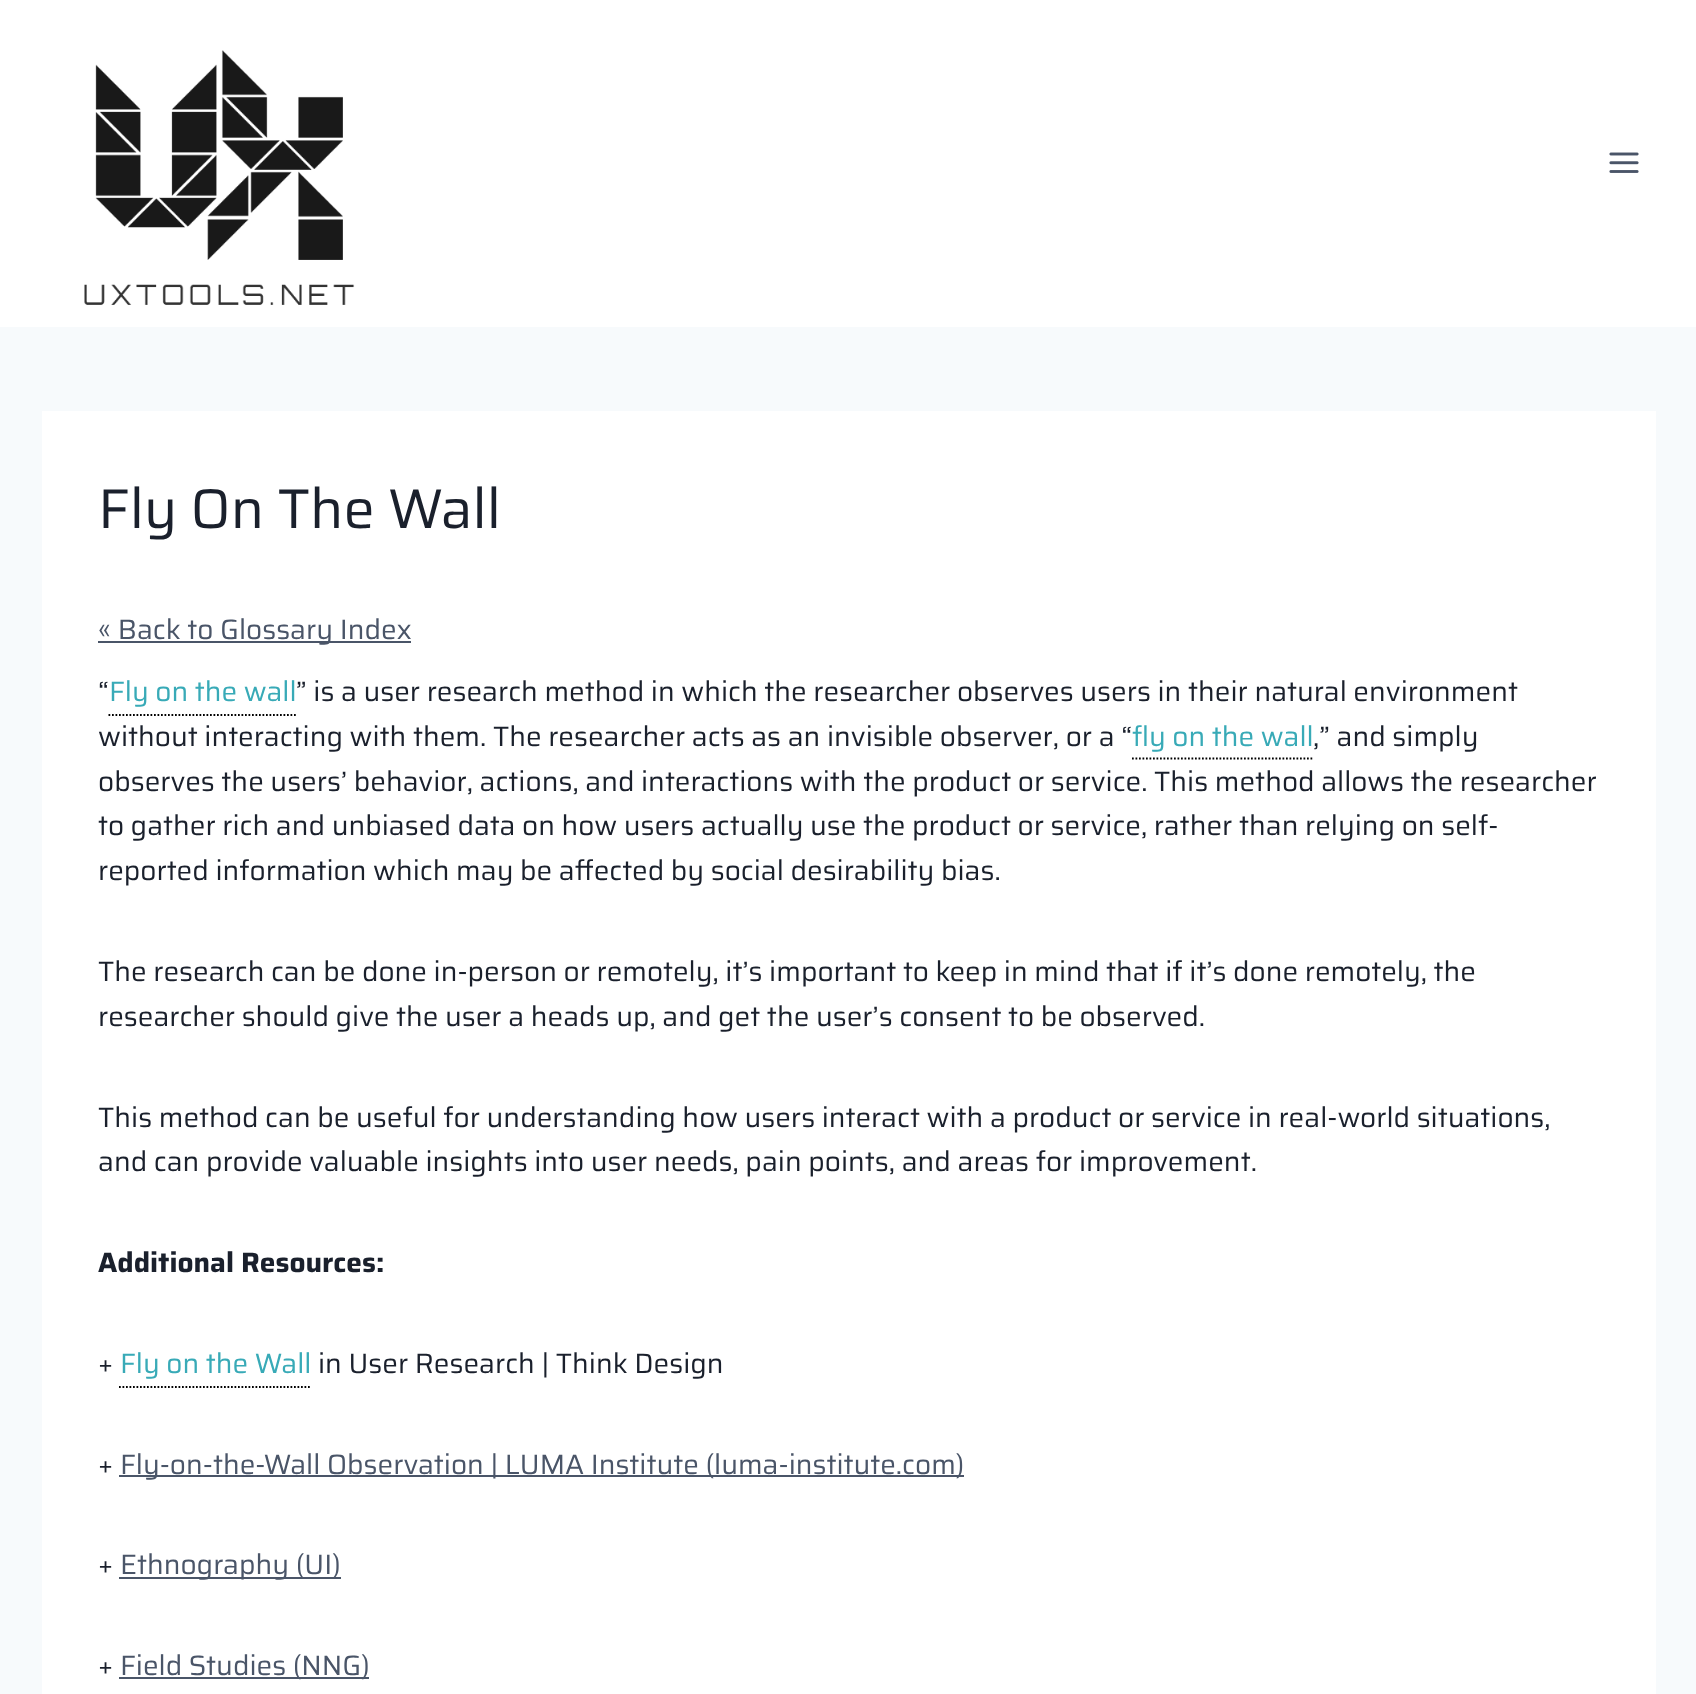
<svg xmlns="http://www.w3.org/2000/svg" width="1696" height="1694">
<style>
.a{font:56px Saira;fill:#1a202c}
.b{font:28px Saira;fill:#4a5568}
.c{font:28px Saira;fill:#1a202c}
.d{font:28px Saira;fill:#38aab7}
.e{font:bold 28px Saira;fill:#1a202c}
</style>
<rect width="100%" height="100%" fill="#f7fafc"/>
<path fill="#fff" d="M0 0h1696v327H0z"/>
<image href="1.png" x="84" y="50" width="271" height="255"/>
<image href="2.png" x="1609" y="152" width="30" height="21"/>
<path fill="#fff" d="M42 411h1614v1283H42z"/>
<path fill="#4a5568" d="M98 641h313v2H98z"/>
<path fill="none" stroke="#000" stroke-width="1.8" stroke-dasharray="1.75 1.75" d="M108.5 715h187.5"/>
<path fill="none" stroke="#000" stroke-width="1.8" stroke-dasharray="1.75 1.75" d="M1132 758.5h182"/>
<path fill="none" stroke="#000" stroke-width="1.8" stroke-dasharray="1.75 1.75" d="M119 1387h192.5"/>
<path fill="#4a5568" d="M119 1475h845v2H119z"/>
<path fill="#4a5568" d="M119 1577h222v2H119z"/>
<path fill="#4a5568" d="M119 1677h250v2H119z"/>
<text class="a" x="98" y="528">Fly On The Wall</text>
<text class="b" x="98" y="639">« Back to Glossary Index</text>
<text class="c" x="98" y="701">“</text>
<text class="d" x="109" y="701">Fly on the wall</text>
<text class="c" x="296" y="701">” is a user research method in which the researcher observes users in their natural environment</text>
<text class="c" x="98" y="746">without interacting with them. The researcher acts as an invisible observer, or a “</text>
<text class="d" x="1132" y="746">fly on the wall</text>
<text class="c" x="1313" y="746">,” and simply</text>
<text class="c" x="98" y="791">observes the users’ behavior, actions, and interactions with the product or service. This method allows the researcher</text>
<text class="c" x="98" y="835">to gather rich and unbiased data on how users actually use the product or service, rather than relying on self-</text>
<text class="c" x="98" y="880">reported information which may be affected by social desirability bias.</text>
<text class="c" x="98" y="981">The research can be done in-person or remotely, it’s important to keep in mind that if it’s done remotely, the</text>
<text class="c" x="98" y="1026">researcher should give the user a heads up, and get the user’s consent to be observed.</text>
<text class="c" x="98" y="1127">This method can be useful for understanding how users interact with a product or service in real-world situations,</text>
<text class="c" x="98" y="1171">and can provide valuable insights into user needs, pain points, and areas for improvement.</text>
<text class="e" x="98" y="1272">Additional Resources:</text>
<text class="c" x="98" y="1373">+</text>
<text class="d" x="120" y="1373">Fly on the Wall</text>
<text class="c" x="318" y="1373">in User Research | Think Design</text>
<text class="c" x="98" y="1474">+</text>
<text class="b" x="120" y="1474">Fly-on-the-Wall Observation | LUMA Institute (luma-institute.com)</text>
<text class="c" x="98" y="1574">+</text>
<text class="b" x="120" y="1574">Ethnography (UI)</text>
<text class="c" x="98" y="1675">+</text>
<text class="b" x="120" y="1675">Field Studies (NNG)</text>
</svg>
